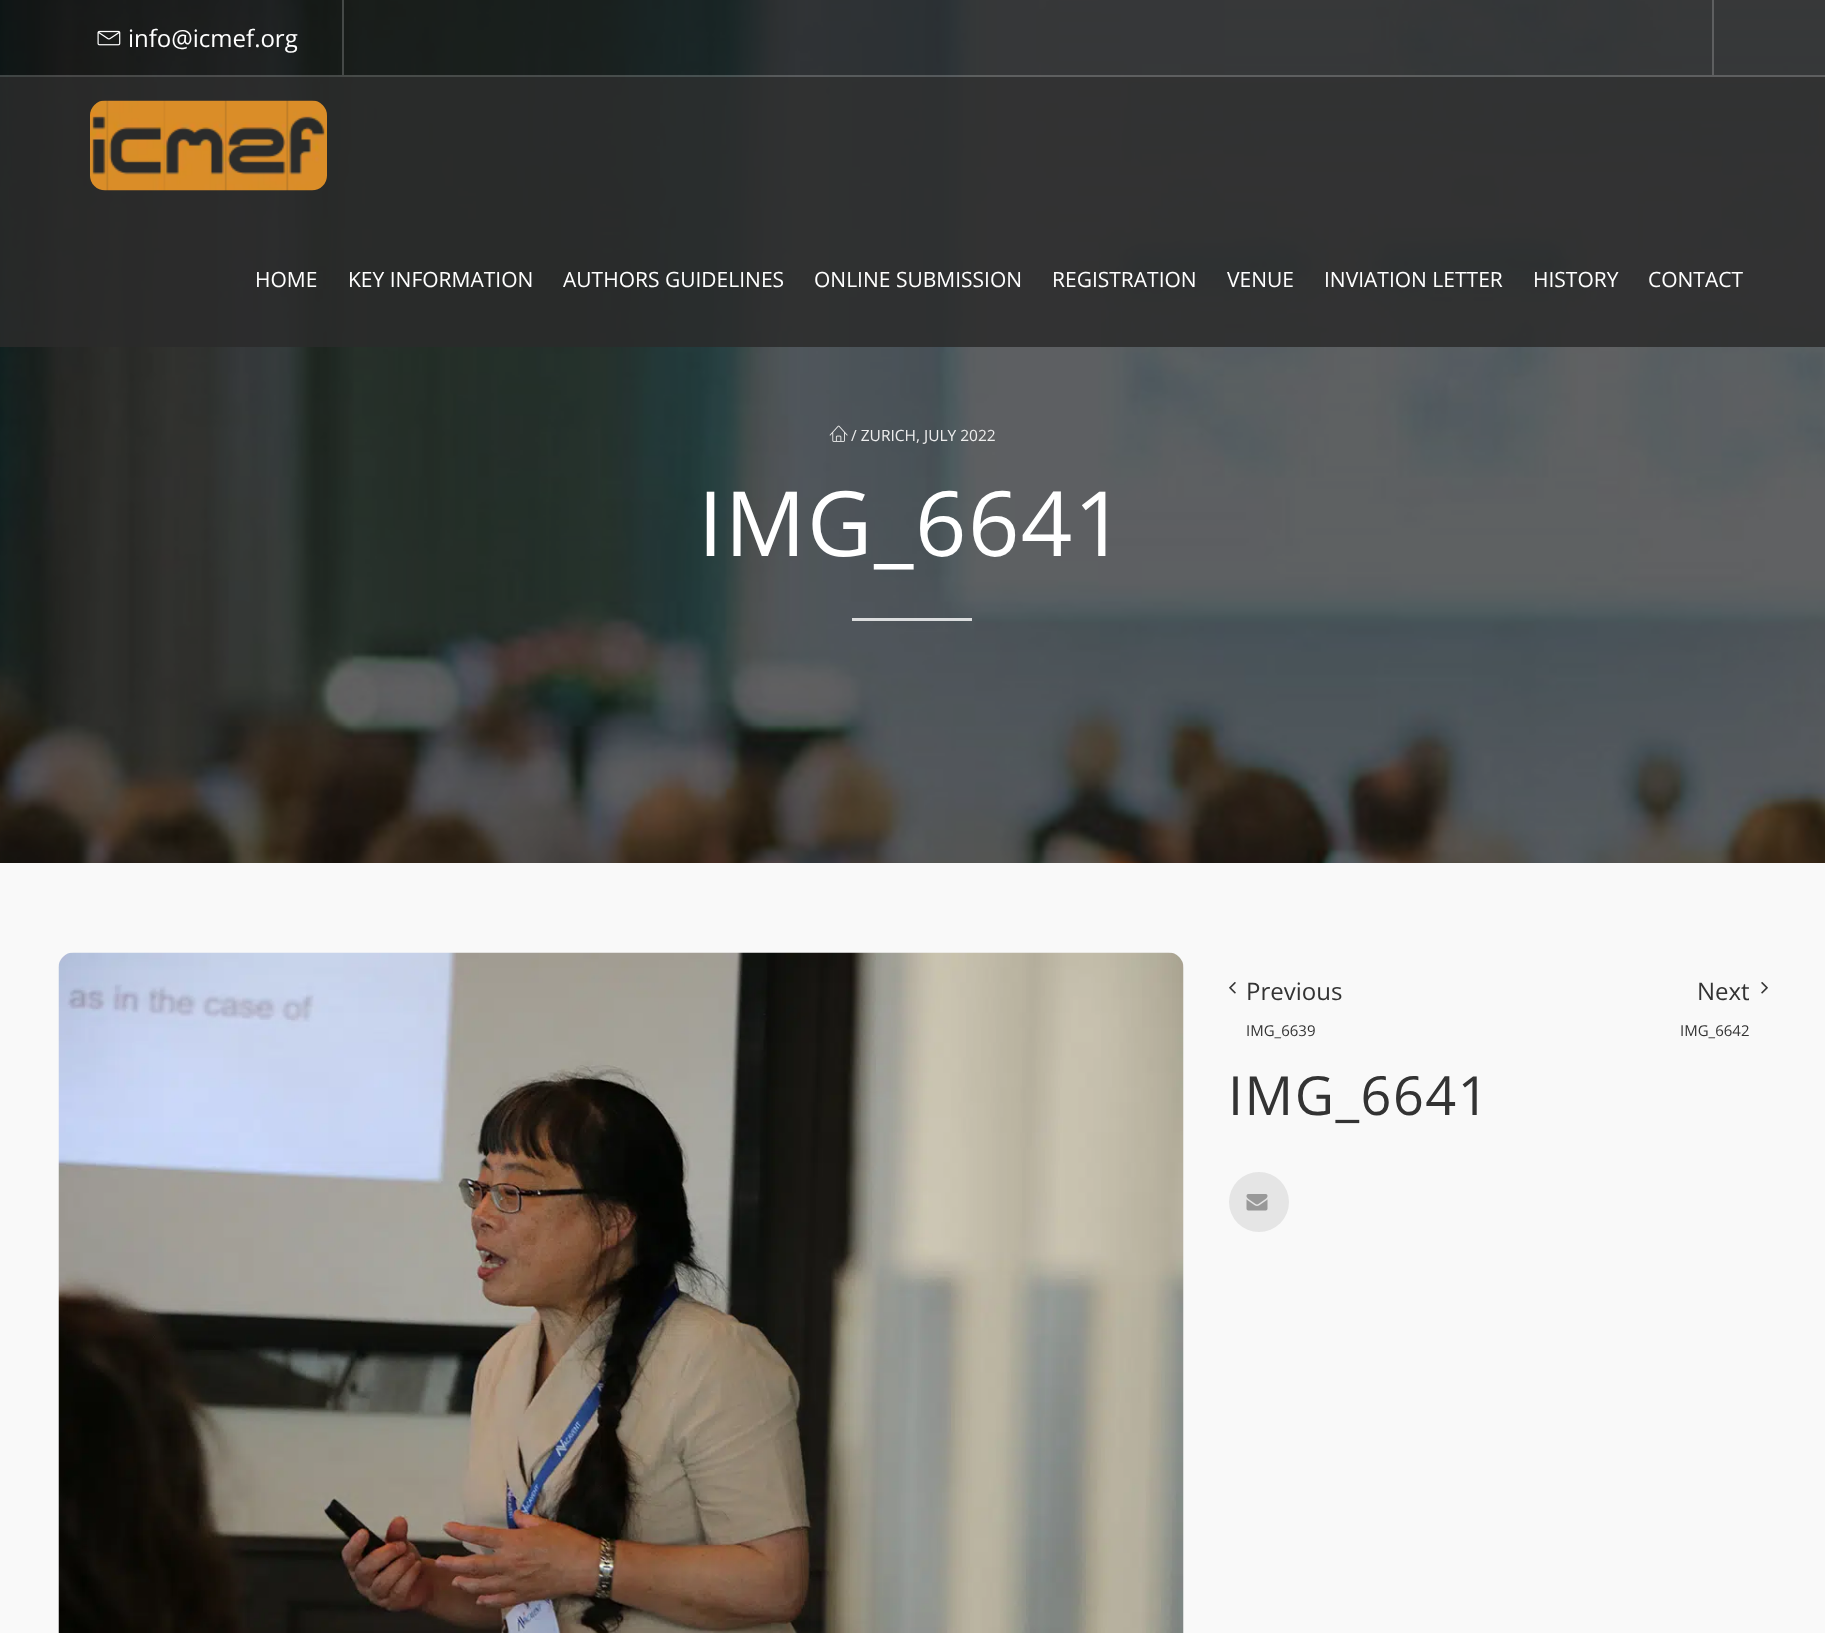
<svg xmlns="http://www.w3.org/2000/svg" width="1825" height="1633">
<style>
.a{font:24px Open Sans;fill:#fff}
.b{font:21px Open Sans;fill:#fff}
.c{font:15.5px Open Sans;fill:#eee}
.d{font:90px Open Sans;letter-spacing:1.5px;fill:#fff}
.e{font:24px Open Sans;fill:#333}
.f{font:15px Open Sans;fill:#333}
.g{font:54px Open Sans;letter-spacing:1.5px;fill:#333}
</style>
<rect width="100%" height="100%" fill="#f9f9f9"/>
<image href="3.png" x="0" y="0" width="1825" height="863"/>
<path fill="#0f0f0f80" d="M0 0h1825v347H0z"/>
<path fill="#ffffff33" d="M0 75h1825v2H0z"/>
<path fill="#454947" d="M342 0h2v75H342z"/>
<image href="1.png" x="97" y="30" width="24" height="16"/>
<path fill="#5e5f60" d="M1712 0h2v75H1712z"/>
<path fill="#303030b3" d="M0 77h1825v270H0z"/>
<image href="2.png" x="90" y="100" width="237" height="91"/>
<image href="4.png" x="829" y="425" width="19" height="17"/>
<path fill="#ffffffcc" d="M852 618h120v3H852z"/>
<image href="5.png" x="58" y="952" width="1126" height="681"/>
<image href="6.png" x="1229" y="982" width="7" height="12"/>
<image href="7.png" x="1761" y="982" width="7" height="12"/>
<circle fill="#e5e5e5" cx="1259" cy="1202" r="30"/>
<image href="8.png" x="1246" y="1194" width="22" height="17"/>
<text class="a" x="128" y="47">info@icmef.org</text>
<text class="b" x="255" y="287">HOME</text>
<text class="b" x="348" y="287">KEY INFORMATION</text>
<text class="b" x="563" y="287">AUTHORS GUIDELINES</text>
<text class="b" x="814" y="287">ONLINE SUBMISSION</text>
<text class="b" x="1052" y="287">REGISTRATION</text>
<text class="b" x="1227" y="287">VENUE</text>
<text class="b" x="1324" y="287">INVIATION LETTER</text>
<text class="b" x="1533" y="287">HISTORY</text>
<text class="b" x="1648" y="287">CONTACT</text>
<text class="c" x="851" y="441">/ ZURICH, JULY 2022</text>
<text class="d" x="698" y="556">IMG_6641</text>
<text class="e" x="1246" y="1000">Previous</text>
<text class="f" x="1246" y="1036">IMG_6639</text>
<text class="e" x="1697" y="1000">Next</text>
<text class="f" x="1680" y="1036">IMG_6642</text>
<text class="g" x="1228" y="1115">IMG_6641</text>
</svg>
